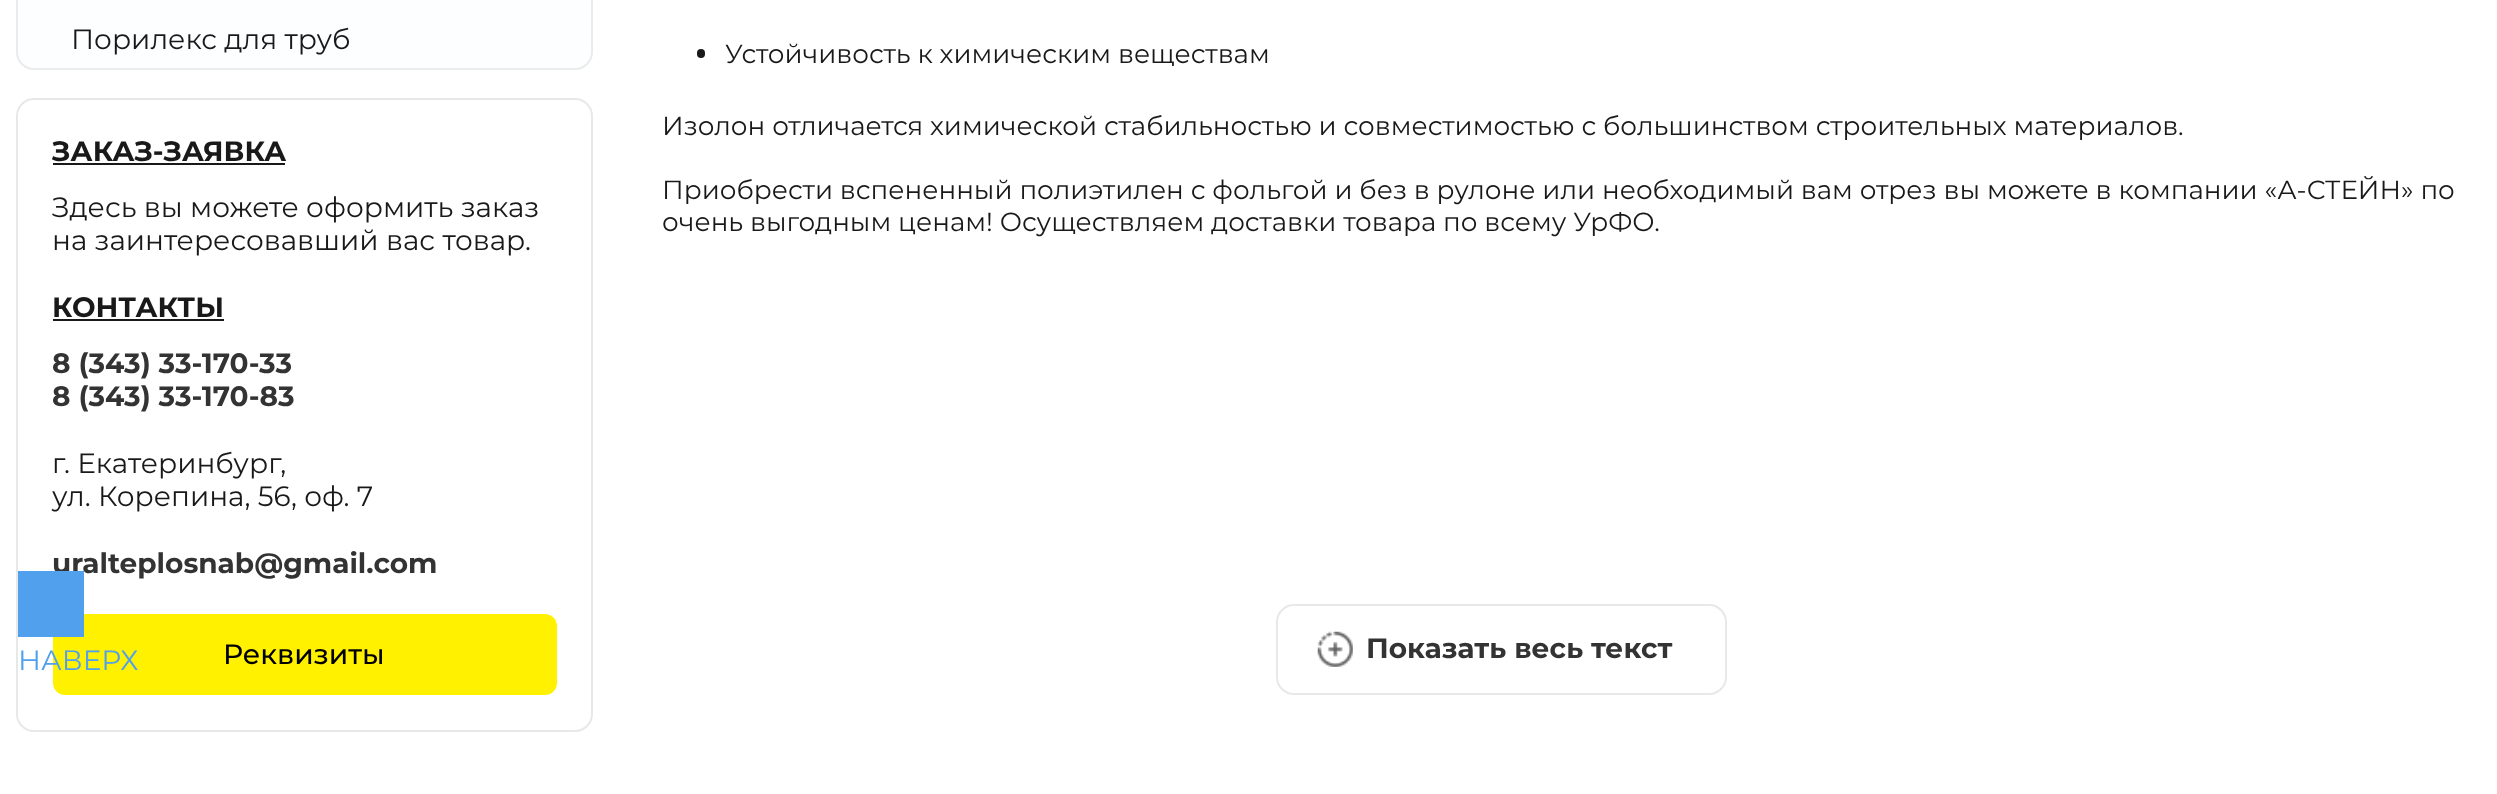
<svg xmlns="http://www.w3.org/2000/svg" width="2497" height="794">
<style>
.a{font:28px Montserrat;fill:#191919}
.b{font:bold 28px Montserrat;fill:#191919}
.c{font:bold 28px Montserrat;fill:#333}
.d{font:500 28px Montserrat;fill:#000}
.e{font:26.25px Montserrat;fill:#191919}
.f{font:28px Montserrat;fill:#51a0ed}
</style>
<rect width="100%" height="100%" fill="#fff"/>
<rect fill="#fcfeff" stroke="#eaebeb" stroke-width="2" x="17" y="-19" width="575" height="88" rx="17"/>
<rect fill="none" stroke="#e8e8e8" stroke-width="2" x="17" y="99" width="575" height="632" rx="17"/>
<path fill="#191919" d="M53 163h232v2H53z"/>
<path fill="#191919" d="M53 319h171v2H53z"/>
<rect fill="#fff100" x="53" y="614" width="504" height="81" rx="12"/>
<rect fill="#191919" x="697" y="49" width="8" height="9" rx="4"/>
<image href="1.png" x="1317" y="631" width="36" height="36"/>
<rect fill="none" stroke="#e8e8e8" stroke-width="2" x="1277" y="605" width="449" height="89" rx="17"/>
<text class="a" x="71" y="49">Порилекс для труб</text>
<text class="b" x="52" y="161">ЗАКАЗ-ЗАЯВКА</text>
<text class="a" x="52" y="217">Здесь вы можете оформить заказ</text>
<text class="a" x="52" y="250">на заинтересовавший вас товар.</text>
<text class="b" x="52" y="317">КОНТАКТЫ</text>
<text class="c" x="52" y="373">8 (343) 33-170-33</text>
<text class="c" x="52" y="406">8 (343) 33-170-83</text>
<text class="a" x="52" y="473">г. Екатеринбург,</text>
<text class="a" x="52" y="506">ул. Корепина, 56, оф. 7</text>
<text class="c" x="52" y="573">uralteplosnab@gmail.com</text>
<text class="d" x="223" y="664">Реквизиты</text>
<text class="e" x="725" y="63">Устойчивость к химическим веществам</text>
<text class="e" x="662" y="135">Изолон отличается химической стабильностью и совместимостью с большинством строительных материалов.</text>
<text class="e" x="662" y="199">Приобрести вспененный полиэтилен с фольгой и без в рулоне или необходимый вам отрез вы можете в компании «А-СТЕЙН» по</text>
<text class="e" x="662" y="231">очень выгодным ценам! Осуществляем доставки товара по всему УрФО.</text>
<text class="c" x="1366" y="658">Показать весь текст</text>
<path fill="#51a0ed" d="M18 571h66v66H18z"/>
<text class="f" x="18" y="670">НАВЕРХ</text>
</svg>
